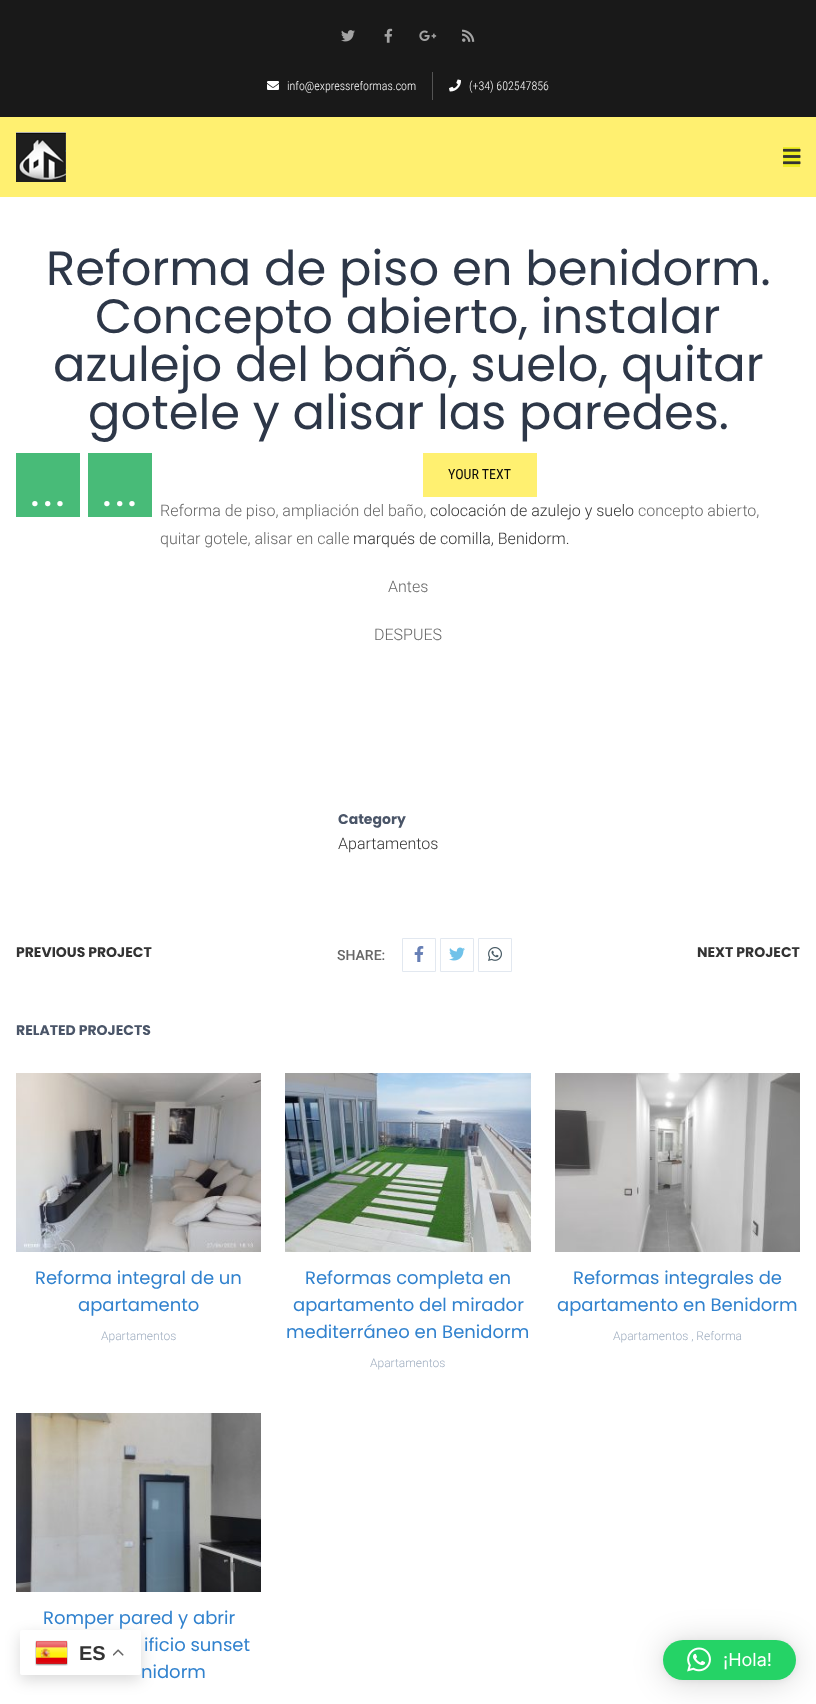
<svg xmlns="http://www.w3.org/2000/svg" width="816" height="1704">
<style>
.a{font:300 12px Roboto Condensed;fill:#fff}
.b{font:48px Poppins;fill:#2d3748}
.c{font:14px Roboto Condensed;fill:#0a0a0a}
.d{font:300 64px Roboto;fill:#fff}
.e{font:300 16px Roboto;fill:#666}
.f{font:300 16px Roboto;fill:#333}
.g{font:bold 14px Poppins;fill:#4a5568}
.h{font:bold 14px Poppins;fill:#333}
.i{font:500 14px Roboto;fill:#666}
.j{font:18px Poppins;fill:#3182ce}
.k{font:300 12px Roboto;fill:#a0aec0}
.l{font:bold 20px Liberation Sans;fill:#333}
.m{font:18px Inter;fill:#fff}
</style>
<rect width="100%" height="100%" fill="#fff"/>
<path fill="#191919" d="M0 0h816v117H0z"/>
<image href="1.png" x="341" y="30" width="14" height="12"/>
<image href="2.png" x="384" y="28" width="9" height="15"/>
<image href="3.png" x="419" y="30" width="18" height="11"/>
<image href="4.png" x="462" y="29" width="13" height="13"/>
<image href="5.png" x="267" y="81" width="12" height="9"/>
<path fill="#545454" d="M432 72h1v28H432z"/>
<image href="6.png" x="449" y="79" width="12" height="13"/>
<path fill="#fff070" d="M0 117h816v80H0z"/>
<image href="7.png" x="16" y="132" width="50" height="50"/>
<path fill="#ee2" d="M783 147h17v20H783z"/>
<image href="8.png" x="783" y="148" width="18" height="17"/>
<path fill="#fff070" d="M423 453h114v44H423z"/>
<path fill="#48bb78" d="M16 453h64v64H16z"/>
<path fill="#48bb78" d="M88 453h64v64H88z"/>
<path fill="none" stroke="#e2e8f0" d="M402.5 938.5h33v33H402.5z"/>
<image href="9.png" x="414" y="946" width="10" height="16"/>
<path fill="none" stroke="#e2e8f0" d="M440.5 938.5h33v33H440.5z"/>
<image href="10.png" x="449" y="947" width="16" height="14"/>
<path fill="none" stroke="#e2e8f0" d="M478.5 938.5h33v33H478.5z"/>
<image href="11.png" x="488" y="947" width="14" height="14"/>
<image href="12.png" x="16" y="1073" width="245" height="179"/>
<image href="13.png" x="285" y="1073" width="246" height="179"/>
<image href="14.png" x="555" y="1073" width="245" height="179"/>
<image href="15.png" x="16" y="1413" width="245" height="179"/>
<rect fill="#00000026" filter="blur(7.5px)" x="20" y="1635" width="121" height="45" rx="2"/>
<rect fill="#fff" x="20" y="1630" width="121" height="45" rx="2"/>
<image href="16.png" x="35" y="1640" width="33" height="26"/>
<image href="17.png" x="113" y="1649" width="11" height="7"/>
<rect fill="#00000029" filter="blur(16px)" x="663" y="1642" width="133" height="40" rx="20"/>
<rect fill="#0000000f" filter="blur(3px)" x="663" y="1641" width="133" height="40" rx="20"/>
<rect fill="#25d366" x="663" y="1640" width="133" height="40" rx="20"/>
<image href="18.png" x="687" y="1647" width="24" height="25"/>
<text class="a" x="287" y="90">info@expressreformas.com</text>
<text class="a" x="469" y="90">(+34) 602547856</text>
<text class="b" x="46" y="285">Reforma de piso en benidorm.</text>
<text class="b" x="95" y="333">Concepto abierto, instalar</text>
<text class="b" x="53" y="381">azulejo del baño, suelo, quitar</text>
<text class="b" x="88" y="429">gotele y alisar las paredes.</text>
<text class="c" x="448" y="479">YOUR TEXT</text>
<text class="d" x="27" y="506">…</text>
<text class="d" x="99" y="506">…</text>
<text class="e" x="160" y="516">Reforma de piso, ampliación del baño,</text>
<text class="f" x="430" y="516">colocación de azulejo y suelo</text>
<text class="e" x="638" y="516">concepto abierto,</text>
<text class="e" x="160" y="544">quitar gotele, alisar en calle</text>
<text class="f" x="353" y="544">marqués de comilla, Benidorm.</text>
<text class="e" x="388" y="592">Antes</text>
<text class="e" x="374" y="640">DESPUES</text>
<text class="g" x="338" y="824">Category</text>
<text class="f" x="338" y="849">Apartamentos</text>
<text class="h" x="16" y="957">PREVIOUS PROJECT</text>
<text class="i" x="337" y="960">SHARE:</text>
<text class="h" x="697" y="957">NEXT PROJECT</text>
<text class="g" x="16" y="1035">RELATED PROJECTS</text>
<text class="j" x="35" y="1284">Reforma integral de un</text>
<text class="j" x="78" y="1311">apartamento</text>
<text class="k" x="101" y="1340">Apartamentos</text>
<text class="j" x="305" y="1284">Reformas completa en</text>
<text class="j" x="293" y="1311">apartamento del mirador</text>
<text class="j" x="286" y="1338">mediterráneo en Benidorm</text>
<text class="k" x="370" y="1367">Apartamentos</text>
<text class="j" x="573" y="1284">Reformas integrales de</text>
<text class="j" x="557" y="1311">apartamento en Benidorm</text>
<text class="k" x="613" y="1340">Apartamentos , Reforma</text>
<text class="j" x="43" y="1624">Romper pared y abrir</text>
<text class="j" x="144" y="1651">ificio sunset</text>
<text class="j" x="141" y="1678">nidorm</text>
<text class="l" x="79" y="1660">ES</text>
<text class="m" x="723" y="1666">¡Hola!</text>
</svg>
